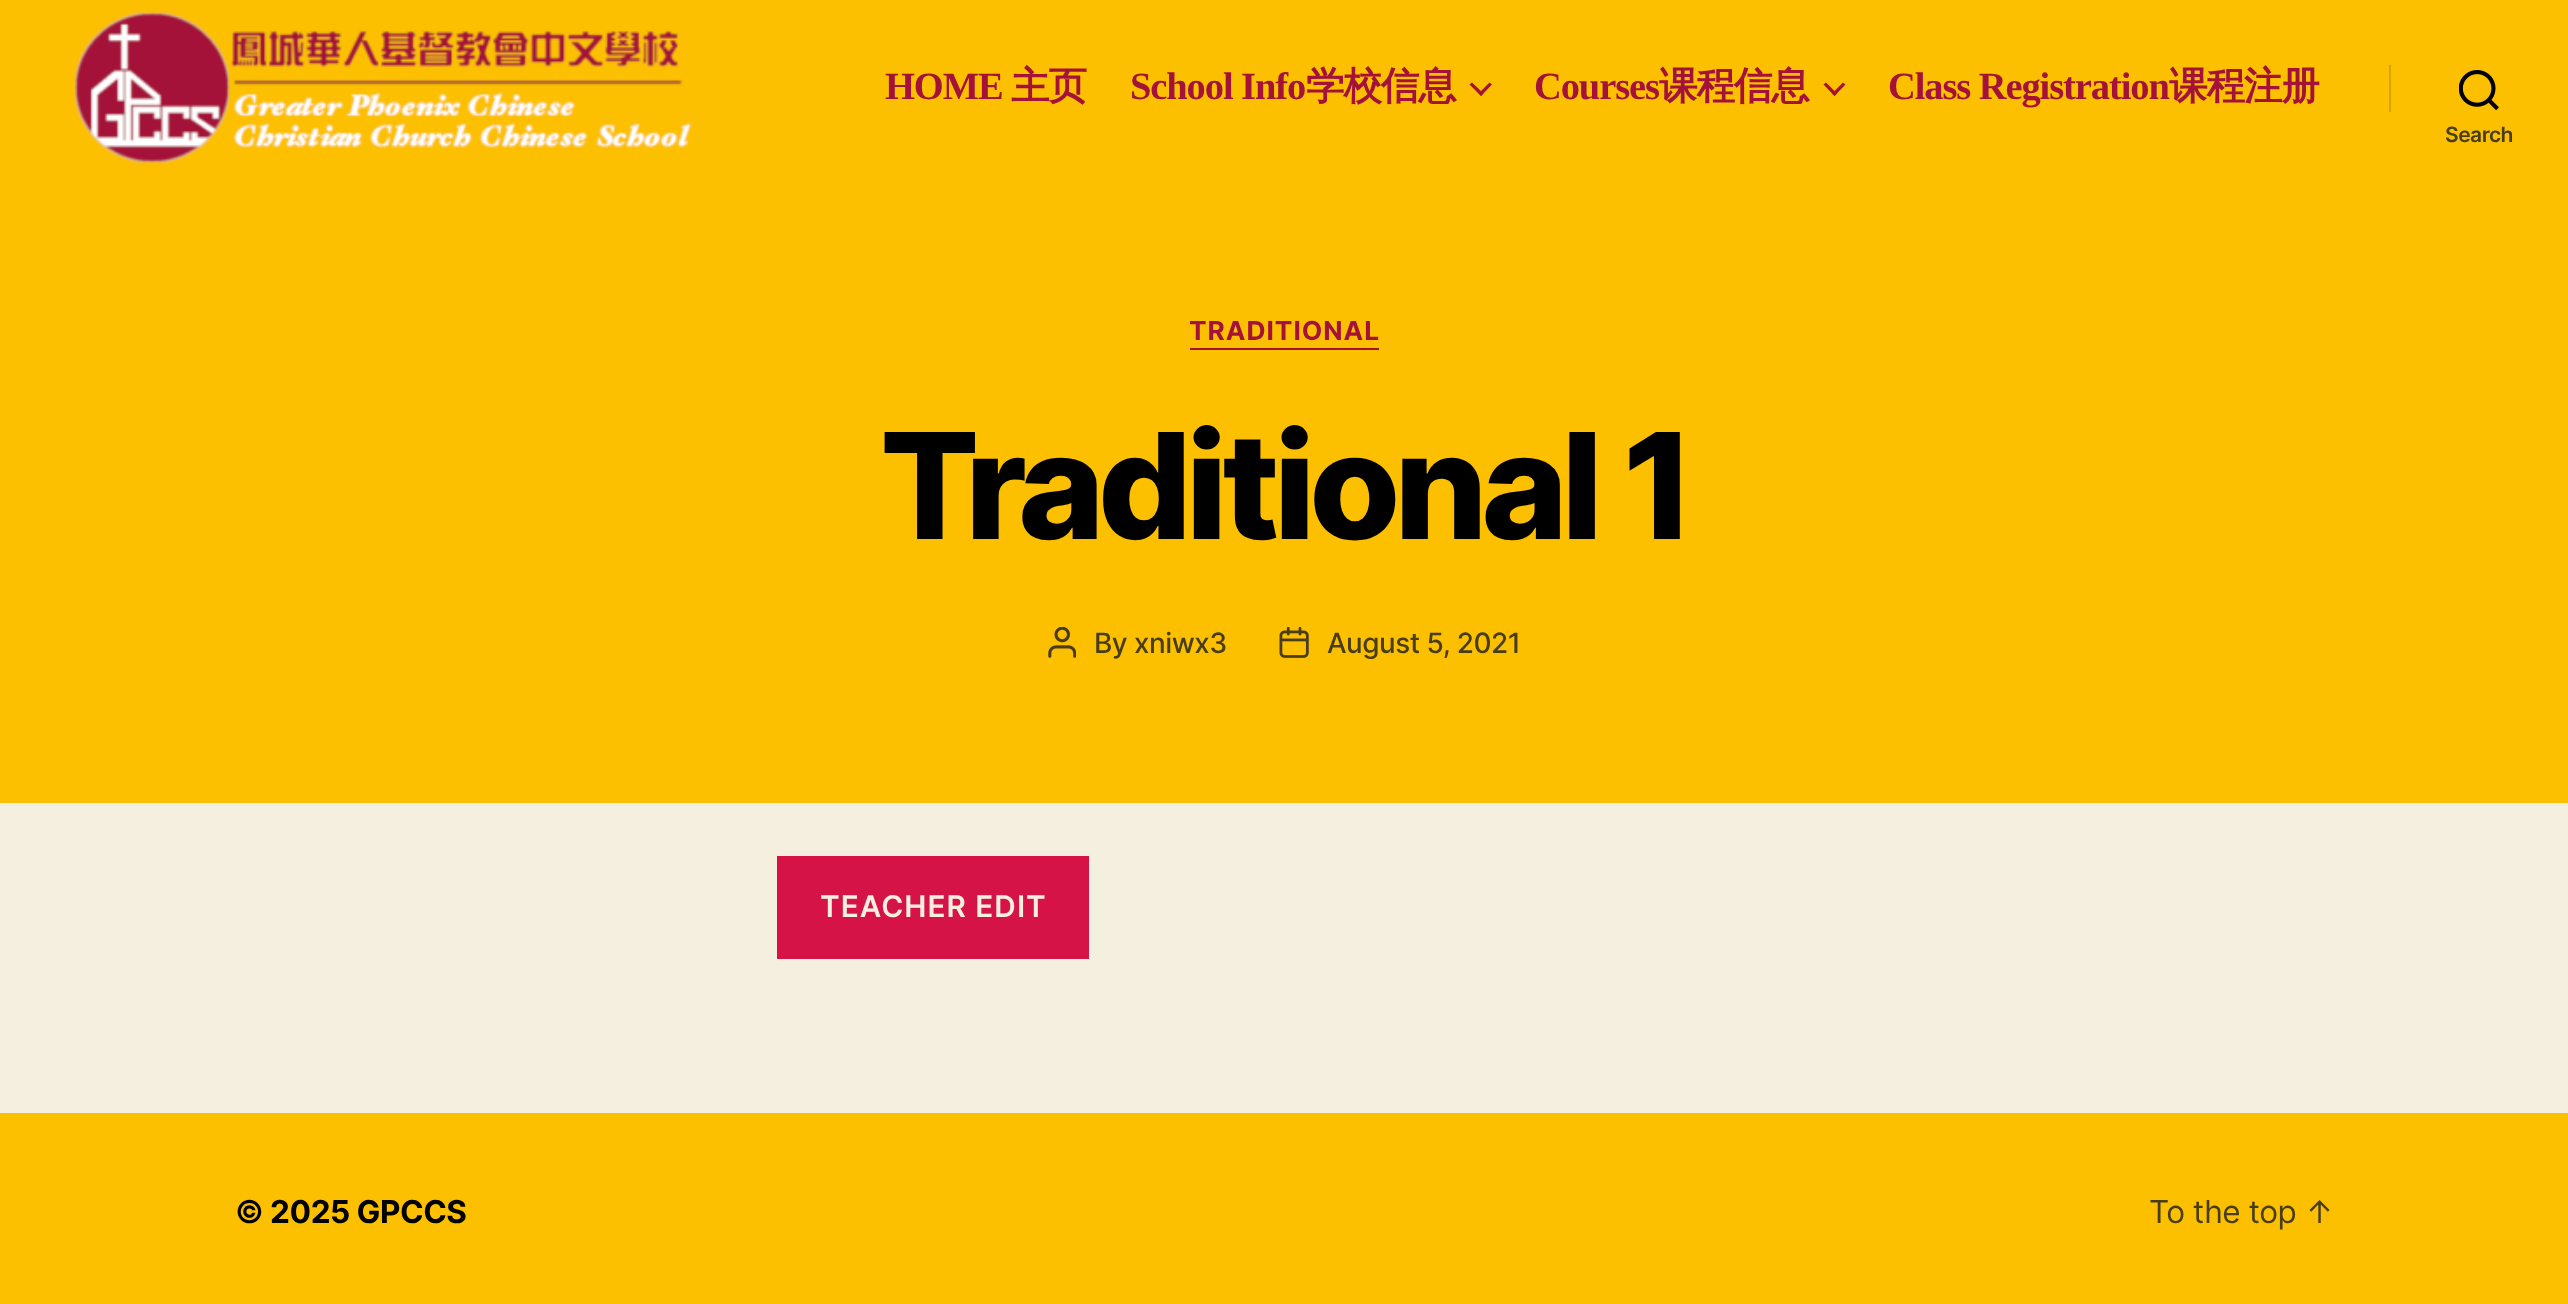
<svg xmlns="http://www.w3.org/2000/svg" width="2568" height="1304">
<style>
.a{font:bold 38.5px Liberation Serif;letter-spacing:-1.1px;fill:#a51239}
.b{font:bold 38.5px WenQuanYi Zen Hei;letter-spacing:-1.1px;fill:#a51239}
.c{font:600 21px Inter;letter-spacing:-0.5px;fill:#483d18}
.d{font:bold 26.25px Inter;letter-spacing:1px;fill:#a51239}
.e{font:800 147px Inter;letter-spacing:-6.1px;fill:#000}
.f{font:500 28px Inter;letter-spacing:-0.5px;fill:#483d18}
.g{font:600 29.75px Inter;letter-spacing:1px;fill:#f5efe0}
.h{font:bold 31.5px Inter;letter-spacing:-0.5px;fill:#000}
.i{font:31.5px Inter;letter-spacing:-0.5px;fill:#483d18}
</style>
<rect width="100%" height="100%" fill="#f5efe0"/>
<path fill="#fcc000" d="M0 0h2568v803H0z"/>
<image href="1.png" x="74" y="11" width="618" height="153"/>
<path fill="#a51239" d="M1469.5 84.5l2.5-2l11.5 11l-2.5 2.5z"/>
<path fill="#a51239" d="M1478.5 93.5l11-11l2.5 2l-11 11.5z"/>
<path fill="#a51239" d="M1823.5 84.5l2.5-2l11 11l-2.5 2.5z"/>
<path fill="#a51239" d="M1832 93.5l11-11l2.5 2l-11 11.5z"/>
<path fill="#d6a400" d="M2389 65h2v47H2389z"/>
<image href="2.png" x="2459" y="70" width="40" height="41"/>
<path fill="#a51239" d="M1190 348h189v2H1190z"/>
<image href="3.png" x="1048" y="627" width="28" height="31"/>
<image href="4.png" x="1279" y="627" width="30" height="31"/>
<path fill="#d61347" d="M777 856h312v103H777z"/>
<path fill="#fcc000" d="M0 1113h2568v191H0z"/>
<text class="a" x="885" y="99">HOME</text>
<text class="b" x="1011" y="99">主页</text>
<text class="a" x="1130" y="99">School Info</text>
<text class="b" x="1306" y="99">学校信息</text>
<text class="a" x="1534" y="99">Courses</text>
<text class="b" x="1659" y="99">课程信息</text>
<text class="a" x="1888" y="99">Class Registration</text>
<text class="b" x="2169" y="99">课程注册</text>
<text class="c" x="2445" y="142">Search</text>
<text class="d" x="1189" y="340">TRADITIONAL</text>
<text class="e" x="880" y="539">Traditional 1</text>
<text class="f" x="1094" y="653">By xniwx3</text>
<text class="f" x="1327" y="653">August 5, 2021</text>
<text class="g" x="820" y="917">TEACHER EDIT</text>
<text class="h" x="235" y="1223">© 2025 GPCCS</text>
<text class="i" x="2149" y="1223">To the top ↑</text>
</svg>
